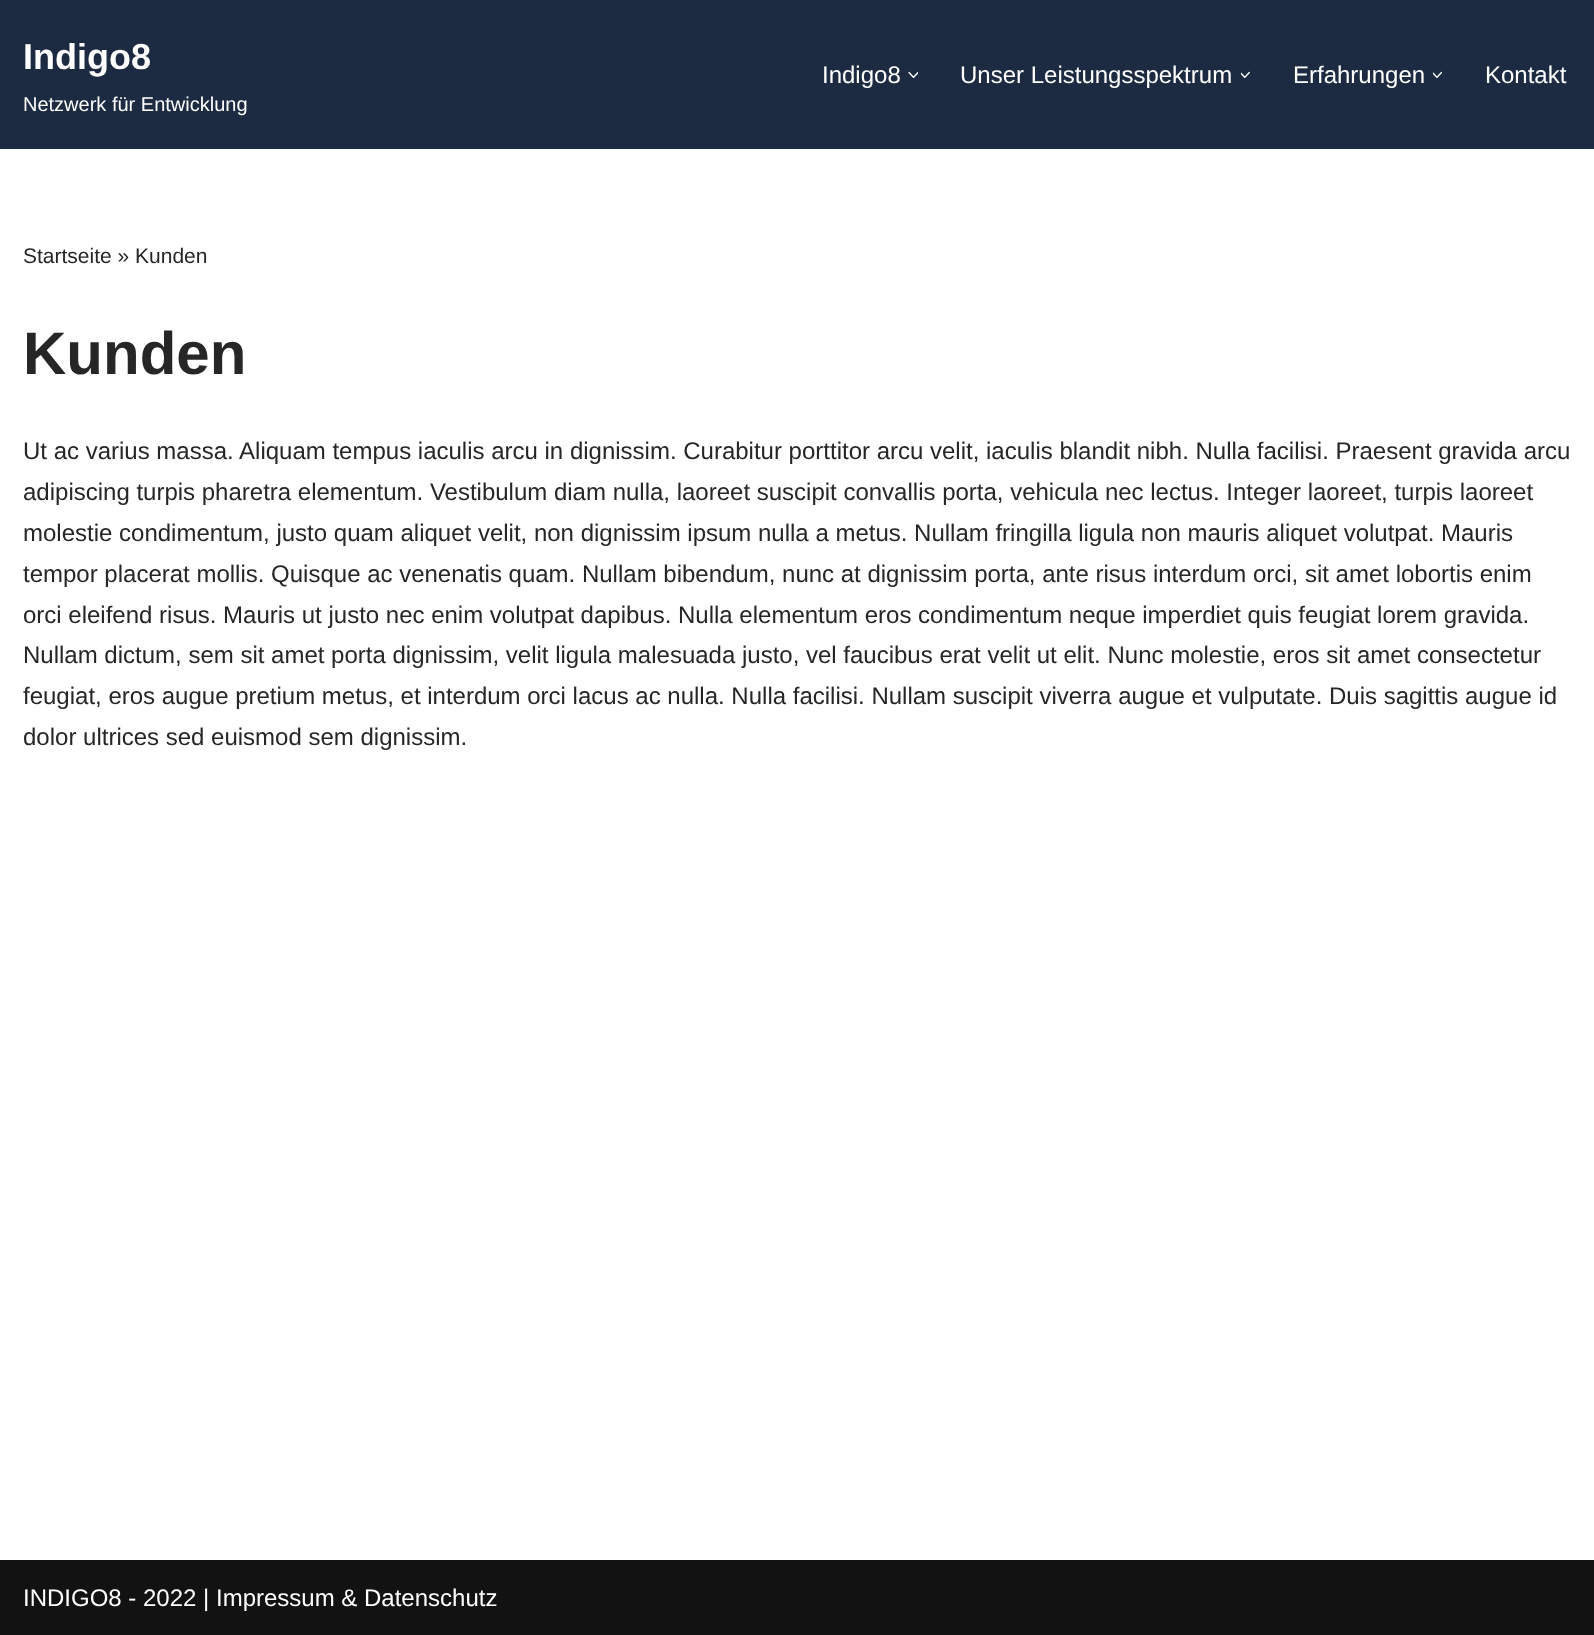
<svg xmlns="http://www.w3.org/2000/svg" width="1594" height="1635">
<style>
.a{font:bold 36px Liberation Sans;fill:#fff}
.b{font:20px Liberation Sans;fill:#fff}
.c{font:24px Liberation Sans;fill:#fff}
.d{font:21px Liberation Sans;fill:#272626}
.e{font:bold 60px Liberation Sans;fill:#272626}
.f{font:24px Liberation Sans;fill:#272626}
</style>
<rect width="100%" height="100%" fill="#fff"/>
<path fill="#1c2b41" d="M0 0h1594v149H0z"/>
<image href="1.png" x="908" y="71" width="10" height="7"/>
<image href="2.png" x="1241" y="71" width="9" height="7"/>
<image href="3.png" x="1433" y="71" width="10" height="7"/>
<path fill="#121212" d="M0 1560h1594v75H0z"/>
<text class="a" x="23" y="69">Indigo8</text>
<text class="b" x="23" y="111">Netzwerk für Entwicklung</text>
<text class="c" x="822" y="83">Indigo8</text>
<text class="c" x="960" y="83">Unser Leistungsspektrum</text>
<text class="c" x="1293" y="83">Erfahrungen</text>
<text class="c" x="1485" y="83">Kontakt</text>
<text class="d" x="23" y="263">Startseite » Kunden</text>
<text class="e" x="23" y="374">Kunden</text>
<text class="f" x="23" y="459">Ut ac varius massa. Aliquam tempus iaculis arcu in dignissim. Curabitur porttitor arcu velit, iaculis blandit nibh. Nulla facilisi. Praesent gravida arcu</text>
<text class="f" x="23" y="500">adipiscing turpis pharetra elementum. Vestibulum diam nulla, laoreet suscipit convallis porta, vehicula nec lectus. Integer laoreet, turpis laoreet</text>
<text class="f" x="23" y="541">molestie condimentum, justo quam aliquet velit, non dignissim ipsum nulla a metus. Nullam fringilla ligula non mauris aliquet volutpat. Mauris</text>
<text class="f" x="23" y="582">tempor placerat mollis. Quisque ac venenatis quam. Nullam bibendum, nunc at dignissim porta, ante risus interdum orci, sit amet lobortis enim</text>
<text class="f" x="23" y="623">orci eleifend risus. Mauris ut justo nec enim volutpat dapibus. Nulla elementum eros condimentum neque imperdiet quis feugiat lorem gravida.</text>
<text class="f" x="23" y="663">Nullam dictum, sem sit amet porta dignissim, velit ligula malesuada justo, vel faucibus erat velit ut elit. Nunc molestie, eros sit amet consectetur</text>
<text class="f" x="23" y="704">feugiat, eros augue pretium metus, et interdum orci lacus ac nulla. Nulla facilisi. Nullam suscipit viverra augue et vulputate. Duis sagittis augue id</text>
<text class="f" x="23" y="745">dolor ultrices sed euismod sem dignissim.</text>
<text class="c" x="23" y="1606">INDIGO8 - 2022 | Impressum &amp; Datenschutz</text>
</svg>
